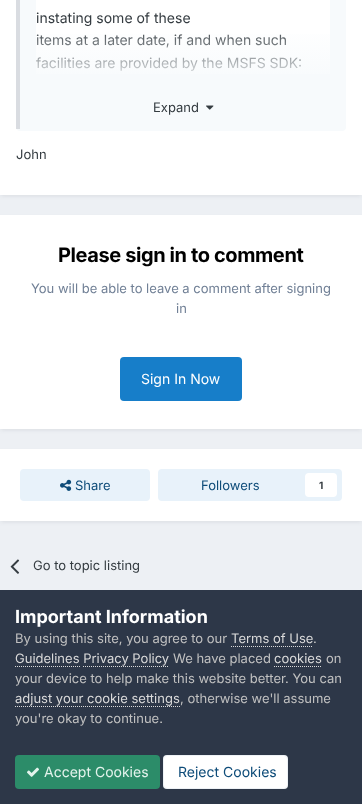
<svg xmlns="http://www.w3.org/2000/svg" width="362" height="804">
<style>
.a{font:14px Inter;fill:#353c41}
.b{font:13px Inter;fill:#353c41}
.c{font:bold 20px Inter;letter-spacing:-0.4px;fill:#000}
.d{font:13px Inter;fill:#718096}
.e{font:14px Inter;fill:#fff}
.f{font:13px Inter;fill:#0e4c79}
.g{font:bold 10px Inter;fill:#353c41}
.h{font:bold 18px Inter;fill:#fff}
.i{font:13px Inter;fill:#c0c0c0}
.j{font:13px Inter;fill:#dadada}
.k{font:14px Inter;fill:#e3f3ec}
.l{font:14px Inter;fill:#0e4c79}
</style>
<defs>
<linearGradient id="g1" gradientUnits="userSpaceOnUse" x1="183" y1="25" x2="183" y2="85"><stop offset="0" stop-color="#f7fafc" stop-opacity="0.01"/><stop offset="1" stop-color="#f7fafc" stop-opacity="0.99"/></linearGradient>
</defs>
<rect width="100%" height="100%" fill="#edf0f4"/>
<path fill="#2d37481a" filter="blur(2px)" d="M1 -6h360v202H1z"/>
<path fill="#fff" d="M0 0h362v195H0z"/>
<rect fill="#f7fafc" x="16" y="-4" width="330" height="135" rx="4"/>
<path fill="#2d374826" d="M16 0h4v129H16z"/>
<path fill="#fff" d="M36 0h294v74H36z"/>
<image href="1.png" x="206" y="105" width="8" height="5"/>
<path fill="#2d37481a" filter="blur(2px)" d="M1 218h360v212H1z"/>
<path fill="#fff" d="M0 215h362v214H0z"/>
<rect fill="#177ec9" x="120" y="357" width="122" height="44" rx="4"/>
<path fill="#2d37481a" filter="blur(2px)" d="M1 452h360v70H1z"/>
<path fill="#fff" d="M0 449h362v72H0z"/>
<rect fill="#e8f2fa" x="20" y="469" width="130" height="32" rx="4"/>
<image href="2.png" x="60" y="479" width="12" height="12"/>
<rect fill="#e8f2fa" x="158" y="469" width="184" height="32" rx="4"/>
<rect fill="#fff" x="305" y="473" width="32" height="24" rx="4"/>
<image href="3.png" x="10" y="559" width="10" height="15"/>
<path fill="#2d3748" d="M0 590h362v214H0z"/>
<path fill="none" stroke="#dadada" stroke-dasharray="1 1" d="M231 646.5h82"/>
<path fill="none" stroke="#dadada" stroke-dasharray="1 1" d="M15 666.5h65"/>
<path fill="none" stroke="#dadada" stroke-dasharray="1 1" d="M274 666.5h48"/>
<path fill="none" stroke="#dadada" stroke-dasharray="1 1" d="M83 666.5h86"/>
<path fill="none" stroke="#dadada" stroke-dasharray="1 1" d="M15 706.5h165"/>
<rect fill="#2c8c69" x="15" y="755" width="145" height="34" rx="4"/>
<image href="4.png" x="27" y="767" width="12" height="10"/>
<rect fill="#fff" x="163" y="755" width="125" height="34" rx="4"/>
<rect fill="none" stroke="#0e4c7912" x="163.5" y="755.5" width="124" height="33" rx="3.5"/>
<text class="a" x="36" y="23">instating some of these</text>
<text class="a" x="36" y="45">items at a later date, if and when such</text>
<text class="a" x="36" y="68">facilities are provided by the MSFS SDK:</text>
<path fill="url(#g1)" d="M36 34h294v40H36z"/>
<text class="b" x="153" y="112">Expand</text>
<text class="b" x="16" y="159">John</text>
<text class="c" x="58" y="262">Please sign in to comment</text>
<text class="d" x="31" y="293">You will be able to leave a comment after signing</text>
<text class="d" x="176" y="313">in</text>
<text class="e" x="141" y="384">Sign In Now</text>
<text class="f" x="75" y="490">Share</text>
<text class="f" x="201" y="490">Followers</text>
<text class="g" x="319" y="489">1</text>
<text class="b" x="33" y="570">Go to topic listing</text>
<text class="h" x="15" y="623">Important Information</text>
<text class="i" x="15" y="643">By using this site, you agree to our</text>
<text class="j" x="231" y="643">Terms of Use</text>
<text class="i" x="313" y="643">.</text>
<text class="j" x="15" y="663">Guidelines Privacy Policy</text>
<text class="i" x="173" y="663">We have placed</text>
<text class="j" x="274" y="663">cookies</text>
<text class="i" x="326" y="663">on</text>
<text class="i" x="15" y="683">your device to help make this website better. You can</text>
<text class="j" x="15" y="703">adjust your cookie settings</text>
<text class="i" x="180" y="703">, otherwise we'll assume</text>
<text class="i" x="15" y="723">you're okay to continue.</text>
<text class="k" x="44" y="777">Accept Cookies</text>
<text class="l" x="178" y="777">Reject Cookies</text>
</svg>
